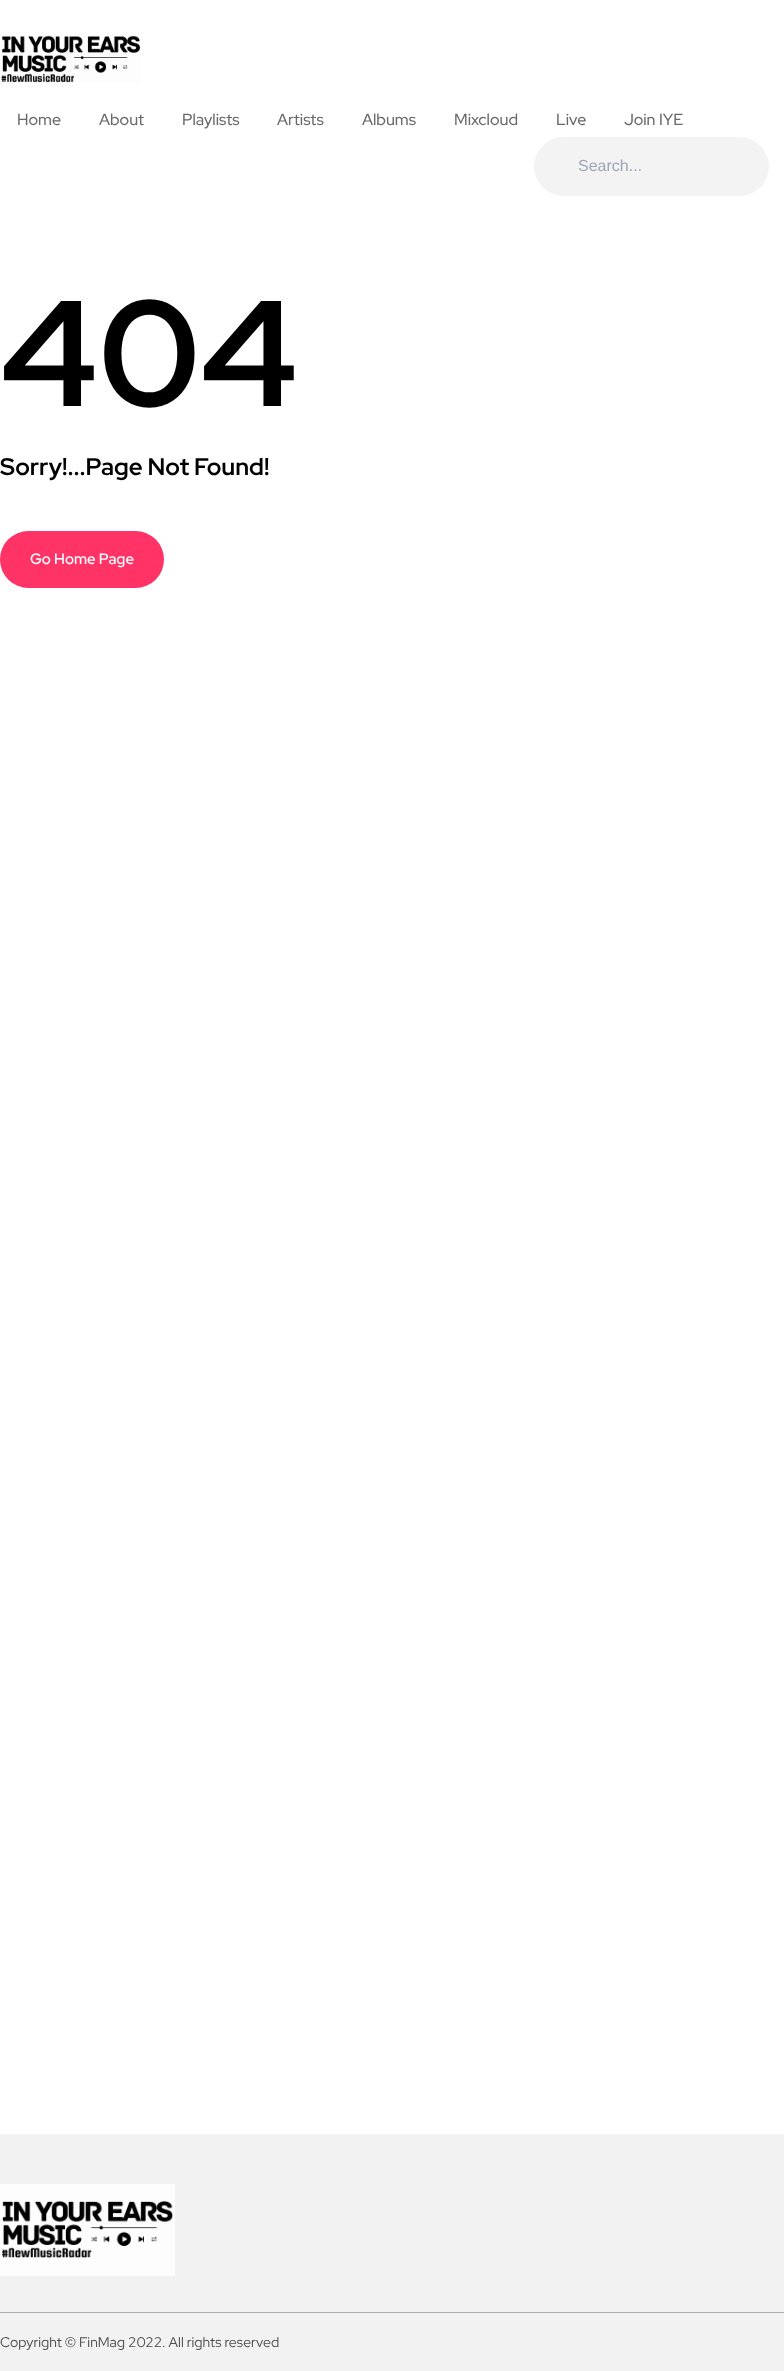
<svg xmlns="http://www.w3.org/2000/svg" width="784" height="2371">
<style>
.a{font:500 16px Red Hat Display;fill:#686868}
.b{font:16px Liberation Sans;fill:#9aa5b6}
.c{font:bold 150px Red Hat Display;fill:#000}
.d{font:bold 24px Red Hat Display;fill:#000}
.e{font:600 15px Red Hat Display;fill:#fff}
.f{font:14px Red Hat Display;fill:#4d4d4d}
</style>
<rect width="100%" height="100%" fill="#fff"/>
<image href="1.png" x="1" y="35" width="140" height="48"/>
<rect fill="#f3f3f3" x="534" y="137" width="235" height="59" rx="29.5"/>
<rect fill="#f36" y="531" width="164" height="57" rx="28.5"/>
<path fill="#f2f2f2" d="M0 2134h784v237H0z"/>
<image href="2.png" x="0" y="2184" width="175" height="92"/>
<path fill="#aeaeae" d="M0 2312h784v1H0z"/>
<text class="a" x="17" y="125">Home</text>
<text class="a" x="99" y="125">About</text>
<text class="a" x="182" y="125">Playlists</text>
<text class="a" x="277" y="125">Artists</text>
<text class="a" x="362" y="125">Albums</text>
<text class="a" x="454" y="125">Mixcloud</text>
<text class="a" x="556" y="125">Live</text>
<text class="a" x="624" y="125">Join IYE</text>
<text class="b" x="578" y="171">Search...</text>
<text class="c" x="0" y="406">404</text>
<text class="d" x="0" y="475">Sorry!...Page Not Found!</text>
<text class="e" x="30" y="564">Go Home Page</text>
<text class="f" x="0" y="2347">Copyright © FinMag 2022. All rights reserved</text>
</svg>
